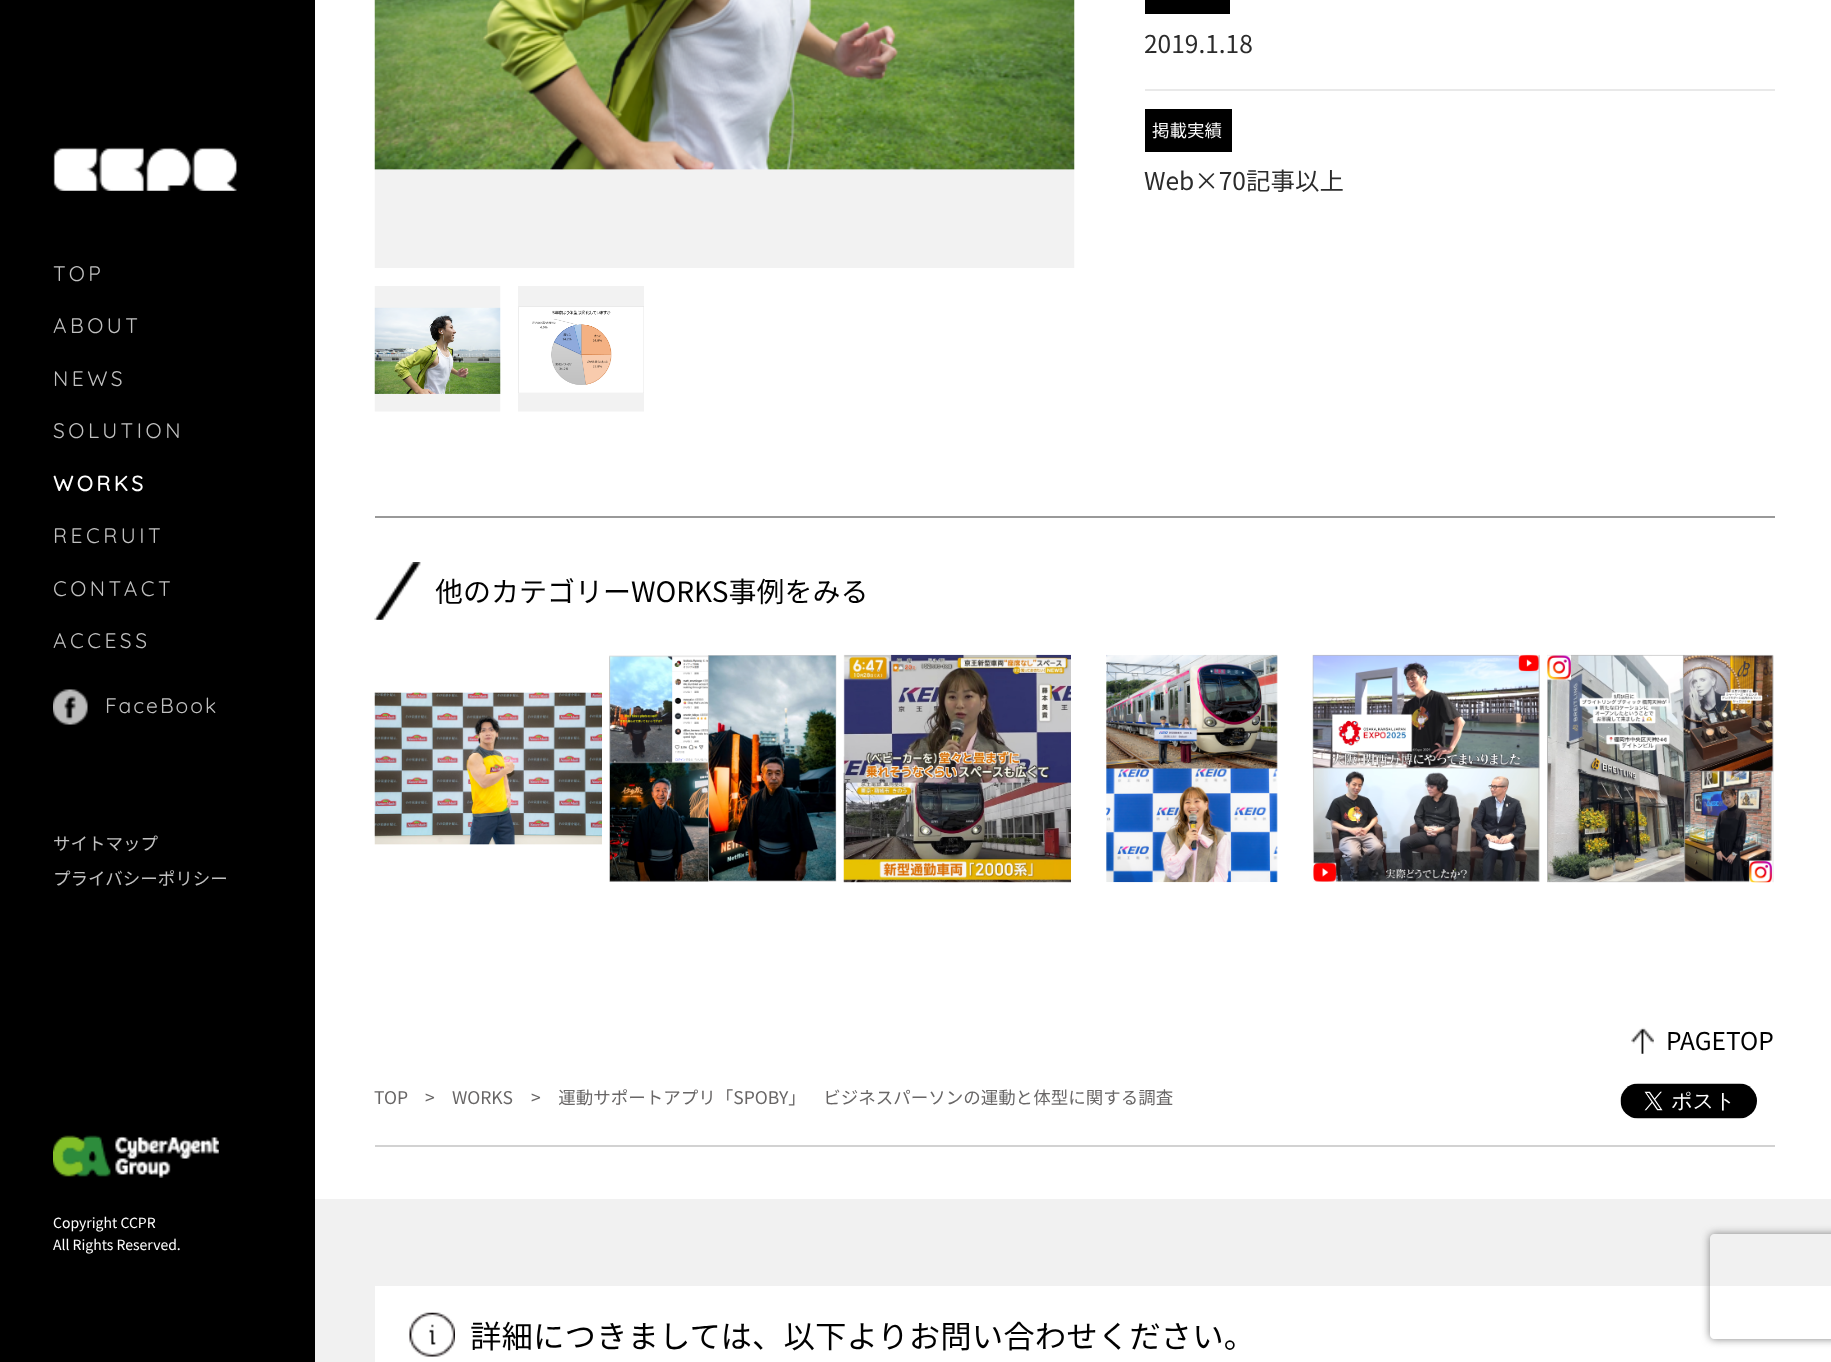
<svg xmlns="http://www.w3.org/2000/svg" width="1831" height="1362">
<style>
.a{font:21px Quicksand;letter-spacing:3.5px;fill:#c0c0c0}
.b{font:bold 21px Quicksand;letter-spacing:3.5px;fill:#fff}
.c{font:21px Quicksand;letter-spacing:2px;fill:#c0c0c0}
.d{font:17.5px Noto Sans JP;fill:#c0c0c0}
.e{font:14px Noto Sans JP;fill:#fff}
.f{font:24.5px Noto Sans JP;fill:#2b2b2b}
.g{font:17.5px Noto Sans JP;fill:#fff}
.h{font:28px Noto Sans JP;fill:#000}
.i{font:24.5px Noto Sans JP;fill:#000}
.j{font:17.5px Noto Sans JP;fill:#686666}
.k{font:31.5px Noto Sans JP;fill:#000}
</style>
<defs>
<clipPath id="clip1"><path d="M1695 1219h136v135h-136zm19 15h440c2 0 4 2 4 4v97c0 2-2 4-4 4h-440c-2 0-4-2-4-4v-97c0-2 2-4 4-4z" clip-rule="evenodd"/></clipPath>
</defs>
<rect width="100%" height="100%" fill="#fff"/>
<path fill="#000" d="M0 0h315v1362H0z"/>
<image href="1.png" x="53" y="147" width="184" height="44"/>
<image href="2.png" x="53" y="689" width="35" height="36"/>
<image href="3.png" x="53" y="1135" width="166" height="43"/>
<path fill="#999" d="M375 516h1400v2H375z"/>
<image href="4.png" x="374" y="0" width="701" height="268"/>
<image href="5.png" x="374" y="286" width="127" height="126"/>
<image href="6.png" x="518" y="286" width="126" height="126"/>
<path fill="#e9e9e9" d="M1145 89h630v2H1145z"/>
<path fill="#000" d="M1145 0h85v14H1145z"/>
<path fill="#000" d="M1145 109h87v43H1145z"/>
<image href="7.png" x="374" y="562" width="47" height="58"/>
<image href="8.png" x="374" y="692" width="228" height="153"/>
<image href="9.png" x="609" y="655" width="228" height="227"/>
<image href="10.png" x="843" y="654" width="228" height="229"/>
<image href="11.png" x="1106" y="654" width="172" height="229"/>
<image href="12.png" x="1312" y="654" width="228" height="228"/>
<image href="13.png" x="1547" y="654" width="227" height="229"/>
<image href="14.png" x="1631" y="1027" width="23" height="27"/>
<path fill="#d2d2d2" d="M375 1145h1400v2H375z"/>
<image href="15.png" x="1620" y="1083" width="137" height="36"/>
<path fill="#f1f1f1" d="M315 1199h1516v163H315z"/>
<path fill="#fff" d="M375 1286h1456v76H375z"/>
<image href="16.png" x="409" y="1312" width="46" height="45"/>
<g clip-path="url(#clip1)">
<rect fill="#808080" filter="blur(4.5px)" x="1710" y="1234" width="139" height="105" rx="4"/>
</g>
<text class="a" x="53" y="281">TOP</text>
<text class="a" x="53" y="333">ABOUT</text>
<text class="a" x="53" y="386">NEWS</text>
<text class="a" x="53" y="438">SOLUTION</text>
<text class="b" x="53" y="491">WORKS</text>
<text class="a" x="53" y="543">RECRUIT</text>
<text class="a" x="53" y="596">CONTACT</text>
<text class="a" x="53" y="648">ACCESS</text>
<text class="c" x="105" y="713">FaceBook</text>
<text class="d" x="53" y="850">サイトマップ</text>
<text class="d" x="53" y="885">プライバシーポリシー</text>
<text class="e" x="53" y="1228">Copyright CCPR</text>
<text class="e" x="53" y="1250">All Rights Reserved.</text>
<text class="f" x="1144" y="53">2019.1.18</text>
<text class="g" x="1152" y="137">掲載実績</text>
<text class="f" x="1144" y="190">Web×70記事以上</text>
<text class="h" x="435" y="602">他のカテゴリーWORKS事例をみる</text>
<text class="i" x="1666" y="1050">PAGETOP</text>
<text class="j" x="374" y="1104">TOP</text>
<text class="j" x="425" y="1104">&gt;</text>
<text class="j" x="452" y="1104">WORKS</text>
<text class="j" x="531" y="1104">&gt;　運動サポートアプリ「SPOBY」　ビジネスパーソンの運動と体型に関する調査</text>
<text class="k" x="470" y="1348">詳細につきましては、以下よりお問い合わせください。</text>
</svg>
